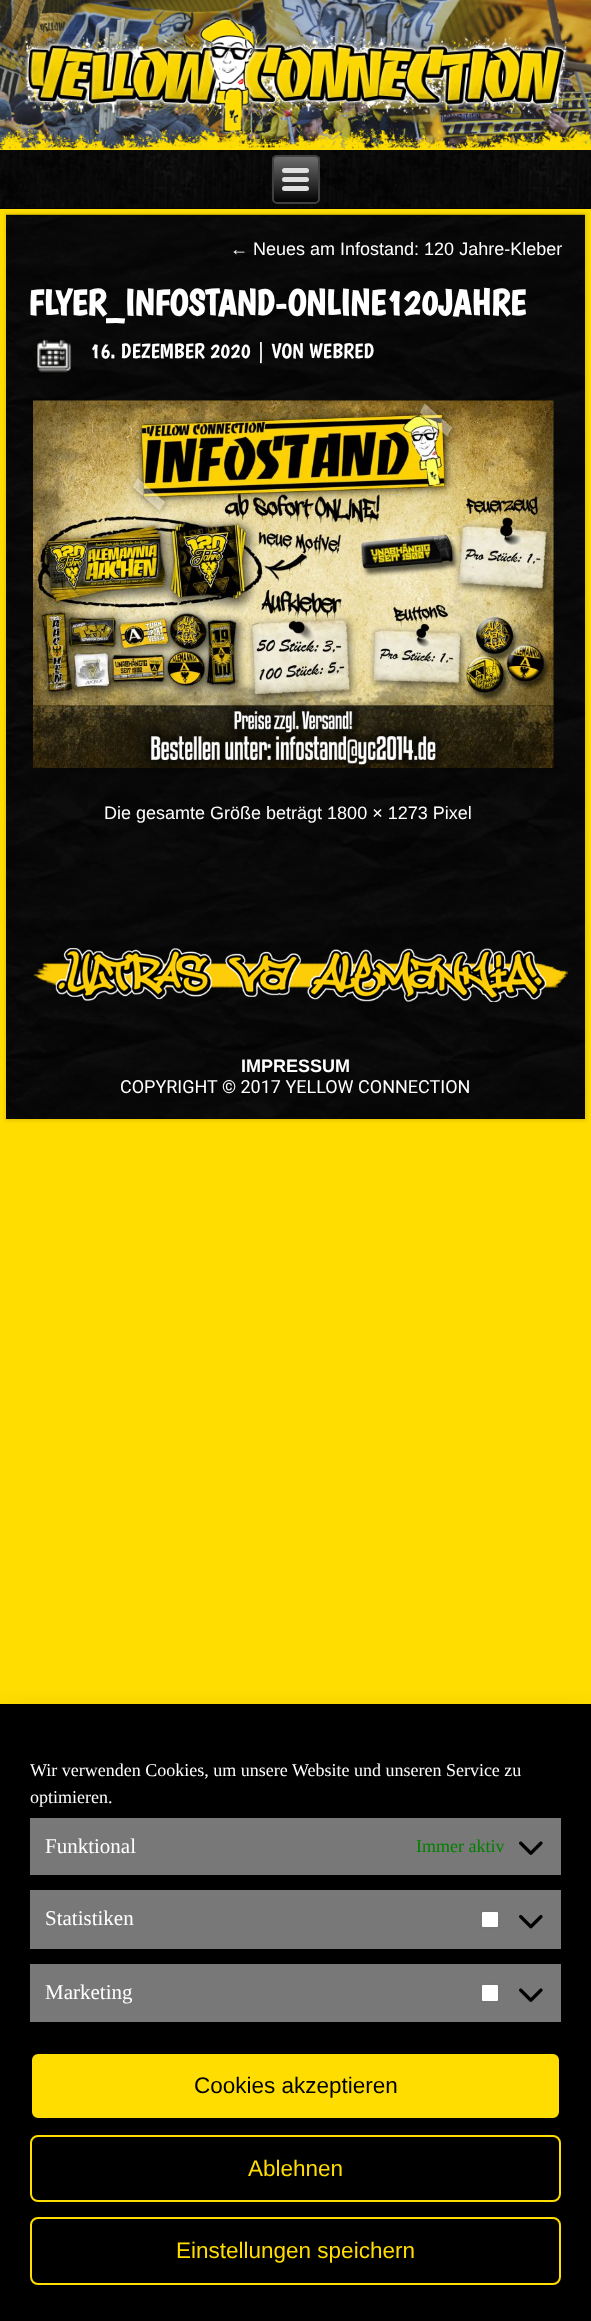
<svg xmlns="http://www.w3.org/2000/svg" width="591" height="2321">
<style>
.a{font:18px Liberation Sans;fill:#fff}
.b{font:bold 36px Boogaloo;fill:#fff}
.c{font:21px Boogaloo;fill:#fff}
.d{font:bold 18px Liberation Sans;fill:#fff}
.e{font:18px Roboto;fill:#fff}
.f{font:18px Liberation Serif;fill:#fff}
.g{font:21px Liberation Serif;fill:#fff}
.h{font:18px Liberation Serif;fill:#008000}
.i{font:22.5px Liberation Sans;fill:#000}
.j{font:22.5px Liberation Sans;fill:#fd0}
</style>
<defs>
<clipPath id="clip1"><rect x="272" y="155" width="48" height="49" rx="5"/></clipPath>
<linearGradient id="g1" gradientUnits="userSpaceOnUse" x1="296" y1="156" x2="296" y2="203"><stop offset="0" stop-color="#707070"/><stop offset="1" stop-color="#000"/></linearGradient>
</defs>
<rect width="100%" height="100%" fill="#fd0"/>
<image href="1.png" x="0" y="0" width="591" height="150"/>
<path fill="#0000001a" filter="blur(1.5px)" d="M5 213h582v908H5z"/>
<path fill="#000" d="M0 150h591v59H0z"/>
<image href="2.png" x="0" y="150" width="591" height="59"/>
<g clip-path="url(#clip1)">
<path fill="url(#g1)" d="M272 156h48v47H272z"/>
</g>
<rect fill="none" stroke="#404040" stroke-width="2" x="273" y="156" width="46" height="47" rx="4"/>
<rect fill="#e0e0e0" x="282" y="168" width="27" height="5" rx="2.5"/>
<rect fill="#e0e0e0" x="282" y="177" width="27" height="5" rx="2.5"/>
<rect fill="#e0e0e0" x="282" y="186" width="27" height="5" rx="2.5"/>
<path fill="#000" d="M6 215h579v904H6z"/>
<image href="3.png" x="6" y="214" width="579" height="905"/>
<image href="4.png" x="37" y="339" width="35" height="34"/>
<image href="5.png" x="33" y="400" width="521" height="368"/>
<image href="6.png" x="33" y="948" width="536" height="54"/>
<path fill="#00000030" filter="blur(15px)" d="M0 1719h591v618H0z"/>
<path fill="#000" d="M0 1704h591v617H0z"/>
<path fill="#787878" d="M30 1818h531v57H30z"/>
<image href="7.png" x="519" y="1841" width="24" height="14"/>
<path fill="#787878" d="M30 1890h531v59H30z"/>
<rect fill="#fff" stroke="#767676" stroke-width="2" x="481" y="1911" width="18" height="17" rx="2"/>
<image href="8.png" x="519" y="1915" width="24" height="14"/>
<path fill="#787878" d="M30 1964h531v58H30z"/>
<rect fill="#fff" stroke="#767676" stroke-width="2" x="481" y="1984" width="18" height="18" rx="2"/>
<image href="7.png" x="519" y="1988" width="24" height="14"/>
<rect fill="#fd0" stroke="#000" stroke-width="2" x="31" y="2053" width="529" height="66" rx="7"/>
<rect fill="none" stroke="#fd0" stroke-width="2" x="31" y="2136" width="529" height="65" rx="7"/>
<rect fill="none" stroke="#fd0" stroke-width="2" x="31" y="2218" width="529" height="66" rx="7"/>
<text class="a" x="230" y="255">← Neues am Infostand: 120 Jahre-Kleber</text>
<text class="b" x="28" y="315">FLYER_INFOSTAND-ONLINE120JAHRE</text>
<text class="c" x="90" y="358">16. DEZEMBER 2020 | VON WEBRED</text>
<text class="a" x="104" y="819">Die gesamte Größe beträgt 1800 × 1273 Pixel</text>
<text class="d" x="241" y="1072">IMPRESSUM</text>
<text class="e" x="120" y="1093">COPYRIGHT © 2017 YELLOW CONNECTION</text>
<text class="f" x="30" y="1776">Wir verwenden Cookies, um unsere Website und unseren Service zu</text>
<text class="f" x="30" y="1803">optimieren.</text>
<text class="g" x="45" y="1853">Funktional</text>
<text class="h" x="416" y="1852">Immer aktiv</text>
<text class="g" x="45" y="1925">Statistiken</text>
<text class="g" x="45" y="1999">Marketing</text>
<text class="i" x="194" y="2093">Cookies akzeptieren</text>
<text class="j" x="248" y="2176">Ablehnen</text>
<text class="j" x="176" y="2258">Einstellungen speichern</text>
</svg>
